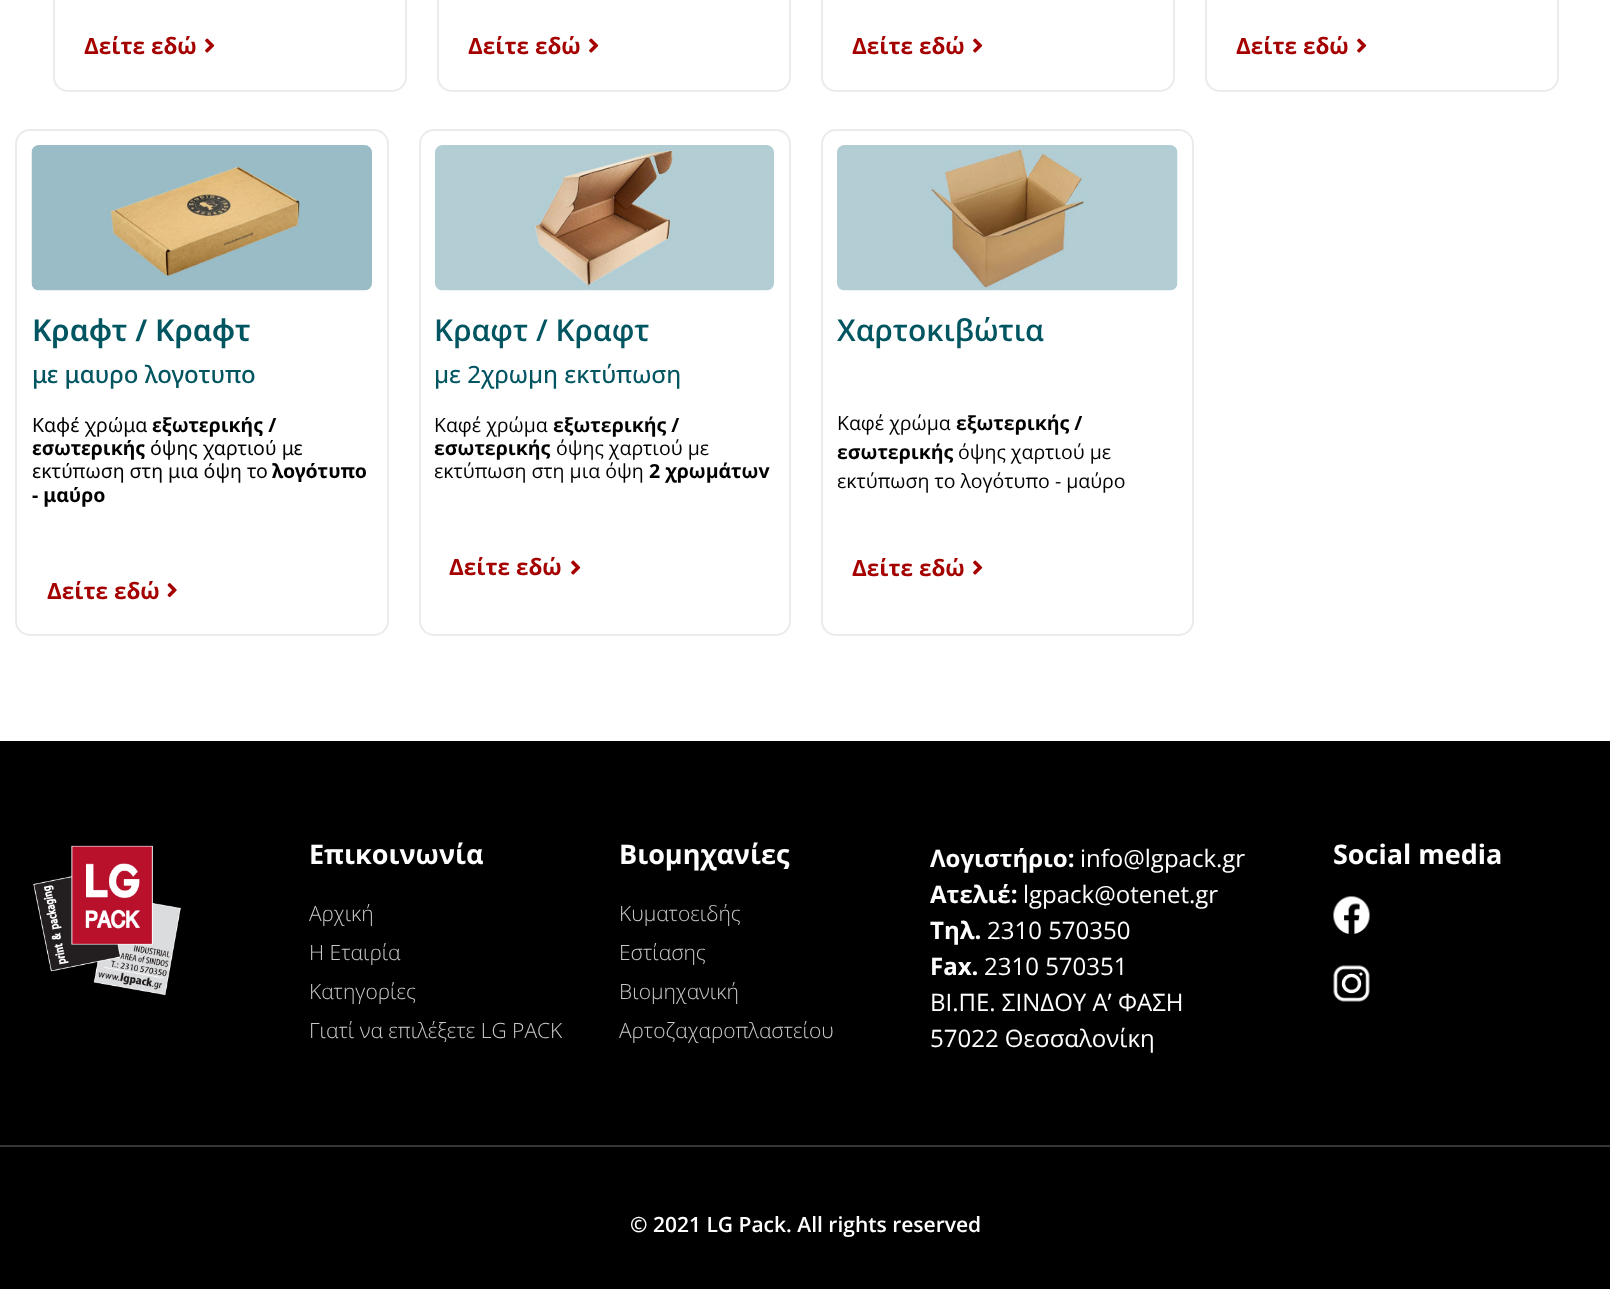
<svg xmlns="http://www.w3.org/2000/svg" width="1610" height="1289">
<style>
.a{font:bold 22.5px Open Sans;fill:#a50000}
.b{font:600 30px Noto Sans;fill:#005560}
.c{font:500 24px Noto Sans;fill:#005560}
.d{font:19.5px Noto Sans;fill:#000}
.e{font:bold 19.5px Noto Sans;fill:#000}
.f{font:600 30px Open Sans;fill:#005560}
.g{font:500 24px Open Sans;fill:#005560}
.h{font:19.5px Open Sans;fill:#000}
.i{font:bold 19.5px Open Sans;fill:#000}
.j{font:bold 27px Open Sans;fill:#fff}
.k{font:300 21px Open Sans;fill:#c9c9c9}
.l{font:bold 24px Open Sans;fill:#fff}
.m{font:24px Open Sans;fill:#fff}
.n{font:600 21px Open Sans;fill:#fff}
</style>
<rect width="100%" height="100%" fill="#fff"/>
<rect fill="none" stroke="#ebebeb" stroke-width="2" x="54" y="-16" width="352" height="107" rx="14"/>
<image href="1.png" x="205" y="38" width="10" height="15"/>
<rect fill="none" stroke="#ebebeb" stroke-width="2" x="438" y="-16" width="352" height="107" rx="14"/>
<image href="1.png" x="589" y="38" width="10" height="15"/>
<rect fill="none" stroke="#ebebeb" stroke-width="2" x="822" y="-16" width="352" height="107" rx="14"/>
<image href="1.png" x="973" y="38" width="10" height="15"/>
<rect fill="none" stroke="#ebebeb" stroke-width="2" x="1206" y="-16" width="352" height="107" rx="14"/>
<image href="1.png" x="1357" y="38" width="10" height="15"/>
<rect fill="none" stroke="#ebebeb" stroke-width="2" x="16" y="130" width="372" height="505" rx="14"/>
<image href="2.png" x="31" y="145" width="341" height="146"/>
<image href="3.png" x="167" y="583" width="10" height="15"/>
<rect fill="none" stroke="#ebebeb" stroke-width="2" x="420" y="130" width="370" height="505" rx="14"/>
<image href="4.png" x="435" y="145" width="339" height="146"/>
<image href="1.png" x="571" y="560" width="10" height="15"/>
<rect fill="none" stroke="#ebebeb" stroke-width="2" x="822" y="130" width="371" height="505" rx="14"/>
<image href="5.png" x="837" y="145" width="341" height="146"/>
<image href="1.png" x="973" y="560" width="10" height="15"/>
<path fill="#000" d="M0 741h1610v548H0z"/>
<image href="6.png" x="33" y="845" width="148" height="151"/>
<image href="7.png" x="1333" y="896" width="37" height="38"/>
<image href="8.png" x="1333" y="965" width="37" height="37"/>
<path fill="#363636" d="M0 1145h1610v2H0z"/>
<text class="a" x="84" y="54">Δείτε εδώ</text>
<text class="a" x="468" y="54">Δείτε εδώ</text>
<text class="a" x="852" y="54">Δείτε εδώ</text>
<text class="a" x="1236" y="54">Δείτε εδώ</text>
<text class="b" x="32" y="341">Κραφτ / Κραφτ</text>
<text class="c" x="32" y="383">με μαυρο λογοτυπο</text>
<text class="d" x="32" y="432">Καφέ χρώμα</text>
<text class="e" x="152" y="432">εξωτερικής /</text>
<text class="e" x="32" y="455">εσωτερικής</text>
<text class="d" x="150" y="455">όψης χαρτιού με</text>
<text class="d" x="32" y="478">εκτύπωση στη μια όψη το</text>
<text class="e" x="272" y="478">λογότυπο</text>
<text class="e" x="32" y="502">- μαύρο</text>
<text class="a" x="47" y="599">Δείτε εδώ</text>
<text class="f" x="434" y="341">Κραφτ / Κραφτ</text>
<text class="g" x="434" y="383">με 2χρωμη εκτύπωση</text>
<text class="h" x="434" y="432">Καφέ χρώμα</text>
<text class="i" x="553" y="432">εξωτερικής /</text>
<text class="i" x="434" y="455">εσωτερικής</text>
<text class="h" x="556" y="455">όψης χαρτιού με</text>
<text class="h" x="434" y="478">εκτύπωση στη μια όψη</text>
<text class="i" x="649" y="478">2 χρωμάτωv</text>
<text class="a" x="449" y="575">Δείτε εδώ</text>
<text class="f" x="837" y="341">Χαρτοκιβώτια</text>
<text class="h" x="837" y="430">Καφέ χρώμα</text>
<text class="i" x="956" y="430">εξωτερικής /</text>
<text class="i" x="837" y="459">εσωτερικής</text>
<text class="h" x="958" y="459">όψης χαρτιού με</text>
<text class="h" x="837" y="488">εκτύπωση το λογότυπο - μαύρο</text>
<text class="a" x="852" y="576">Δείτε εδώ</text>
<text class="j" x="309" y="864">Επικοινωνία</text>
<text class="k" x="309" y="921">Αρχική</text>
<text class="k" x="309" y="960">Η Εταιρία</text>
<text class="k" x="309" y="999">Κατηγορίες</text>
<text class="k" x="309" y="1038">Γιατί να επιλέξετε LG PACK</text>
<text class="j" x="619" y="864">Βιομηχανίες</text>
<text class="k" x="619" y="921">Κυματοειδής</text>
<text class="k" x="619" y="960">Εστίασης</text>
<text class="k" x="619" y="999">Βιομηχανική</text>
<text class="k" x="619" y="1038">Αρτοζαχαροπλαστείου</text>
<text class="l" x="930" y="867">Λογιστήριο:</text>
<text class="m" x="1080" y="867">info@lgpack.gr</text>
<text class="l" x="930" y="903">Ατελιέ:</text>
<text class="m" x="1023" y="903">lgpack@otenet.gr</text>
<text class="l" x="930" y="939">Τηλ.</text>
<text class="m" x="987" y="939">2310 570350</text>
<text class="l" x="930" y="975">Fax.</text>
<text class="m" x="984" y="975">2310 570351</text>
<text class="m" x="930" y="1011">ΒΙ.ΠΕ. ΣΙΝΔΟΥ Α’ ΦΑΣΗ</text>
<text class="m" x="930" y="1047">57022 Θεσσαλονίκη</text>
<text class="j" x="1333" y="864">Social media</text>
<text class="n" x="630" y="1232">© 2021 LG Pack. All rights reserved</text>
</svg>
